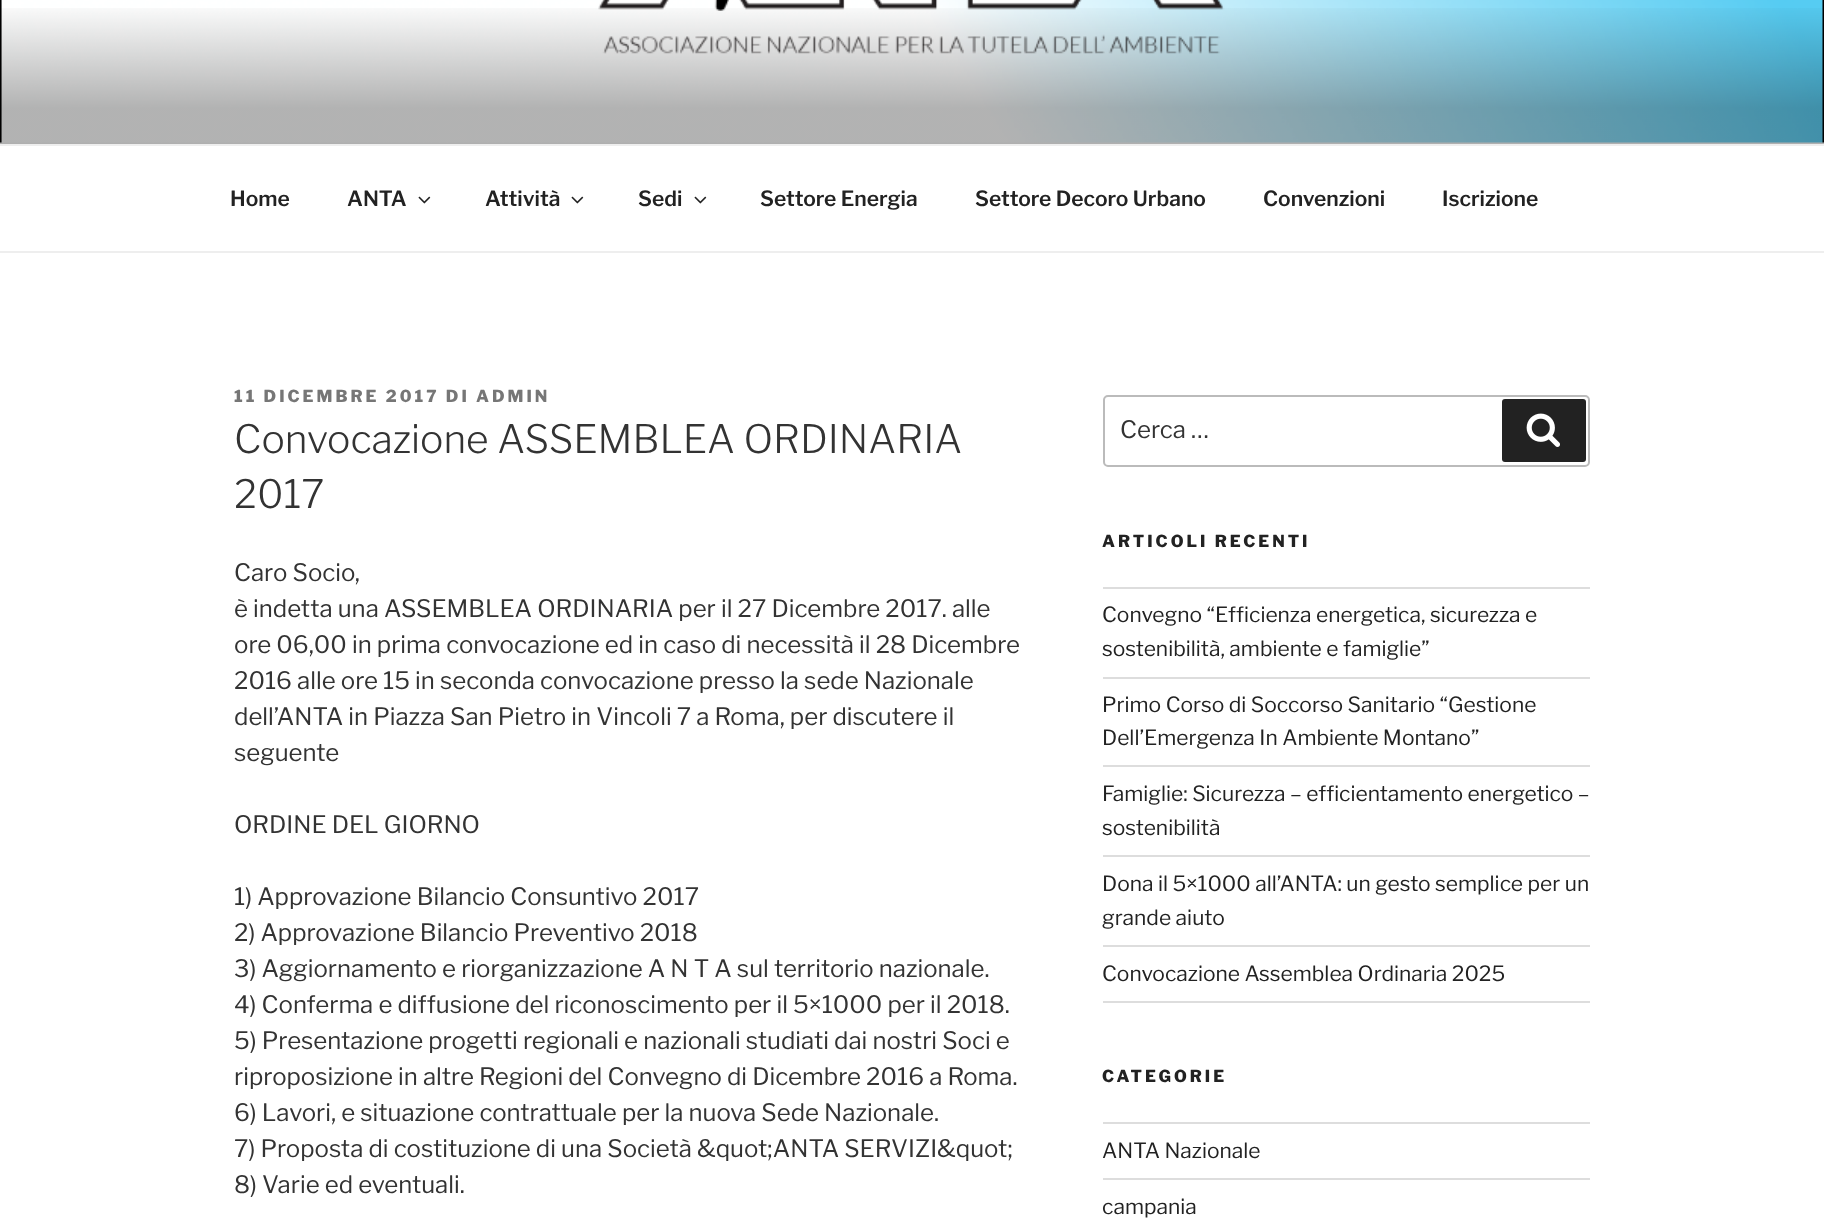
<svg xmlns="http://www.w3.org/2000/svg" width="1824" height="1225">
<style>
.a{font:100 21px 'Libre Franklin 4';fill:#222}
.b{font:100 16.5px Libre Franklin;letter-spacing:3px;fill:#767676}
.c{font:100 39px 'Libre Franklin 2';fill:#333}
.d{font:100 24px 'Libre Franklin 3';fill:#333}
.e{font:100 16.5px Libre Franklin;letter-spacing:3px;fill:#222}
.f{font:100 21px 'Libre Franklin 3';fill:#222}
</style>
<defs>
<linearGradient id="g1" gradientUnits="userSpaceOnUse" x1="912" y1="0" x2="912" y2="144"><stop offset="0" stop-color="#000" stop-opacity="0"/><stop offset="0.75" stop-color="#000" stop-opacity="0.3"/><stop offset="1" stop-color="#000" stop-opacity="0.3"/></linearGradient>
</defs>
<rect width="100%" height="100%" fill="#fff"/>
<path fill="#fafafa" d="M0 142h1824v2H0z"/>
<image href="1.png" x="0" y="0" width="1824" height="143"/>
<path fill="url(#g1)" d="M0 8h1824v136H0z"/>
<path fill="#eee" d="M0 144h1824v2H0z"/>
<path fill="#eee" d="M0 251h1824v2H0z"/>
<image href="2.png" x="418" y="196" width="13" height="8"/>
<image href="2.png" x="571" y="196" width="13" height="8"/>
<image href="2.png" x="694" y="196" width="13" height="8"/>
<rect fill="none" stroke="#bbb" stroke-width="2" x="1104" y="396" width="485" height="70" rx="4"/>
<rect fill="#222" x="1502" y="399" width="84" height="63" rx="3"/>
<image href="3.png" x="1526" y="413" width="34" height="34"/>
<path fill="#ddd" d="M1103 587h487v2H1103z"/>
<path fill="#ddd" d="M1103 677h487v2H1103z"/>
<path fill="#ddd" d="M1103 765h487v2H1103z"/>
<path fill="#ddd" d="M1103 855h487v2H1103z"/>
<path fill="#ddd" d="M1103 945h487v2H1103z"/>
<path fill="#ddd" d="M1103 1001h487v2H1103z"/>
<path fill="#ddd" d="M1103 1122h487v2H1103z"/>
<path fill="#ddd" d="M1103 1178h487v2H1103z"/>
<text class="a" x="230" y="206">Home</text>
<text class="a" x="347" y="206">ANTA</text>
<text class="a" x="485" y="206">Attività</text>
<text class="a" x="638" y="206">Sedi</text>
<text class="a" x="760" y="206">Settore Energia</text>
<text class="a" x="975" y="206">Settore Decoro Urbano</text>
<text class="a" x="1263" y="206">Convenzioni</text>
<text class="a" x="1442" y="206">Iscrizione</text>
<text class="b" x="234" y="402">11 DICEMBRE 2017 DI ADMIN</text>
<text class="c" x="234" y="453">Convocazione ASSEMBLEA ORDINARIA</text>
<text class="c" x="234" y="508">2017</text>
<text class="d" x="234" y="581">Caro Socio,</text>
<text class="d" x="234" y="617">è indetta una ASSEMBLEA ORDINARIA per il 27 Dicembre 2017. alle</text>
<text class="d" x="234" y="653">ore 06,00 in prima convocazione ed in caso di necessità il 28 Dicembre</text>
<text class="d" x="234" y="689">2016 alle ore 15 in seconda convocazione presso la sede Nazionale</text>
<text class="d" x="234" y="725">dell’ANTA in Piazza San Pietro in Vincoli 7 a Roma, per discutere il</text>
<text class="d" x="234" y="761">seguente</text>
<text class="d" x="234" y="833">ORDINE DEL GIORNO</text>
<text class="d" x="234" y="905">1) Approvazione Bilancio Consuntivo 2017</text>
<text class="d" x="234" y="941">2) Approvazione Bilancio Preventivo 2018</text>
<text class="d" x="234" y="977">3) Aggiornamento e riorganizzazione A N T A sul territorio nazionale.</text>
<text class="d" x="234" y="1013">4) Conferma e diffusione del riconoscimento per il 5×1000 per il 2018.</text>
<text class="d" x="234" y="1049">5) Presentazione progetti regionali e nazionali studiati dai nostri Soci e</text>
<text class="d" x="234" y="1085">riproposizione in altre Regioni del Convegno di Dicembre 2016 a Roma.</text>
<text class="d" x="234" y="1121">6) Lavori, e situazione contrattuale per la nuova Sede Nazionale.</text>
<text class="d" x="234" y="1157">7) Proposta di costituzione di una Società &amp;quot;ANTA SERVIZI&amp;quot;</text>
<text class="d" x="234" y="1193">8) Varie ed eventuali.</text>
<text class="d" x="1120" y="438">Cerca …</text>
<text class="e" x="1102" y="547">ARTICOLI RECENTI</text>
<text class="f" x="1102" y="622">Convegno “Efficienza energetica, sicurezza e</text>
<text class="f" x="1102" y="656">sostenibilità, ambiente e famiglie”</text>
<text class="f" x="1102" y="712">Primo Corso di Soccorso Sanitario “Gestione</text>
<text class="f" x="1102" y="745">Dell’Emergenza In Ambiente Montano”</text>
<text class="f" x="1102" y="801">Famiglie: Sicurezza – efficientamento energetico –</text>
<text class="f" x="1102" y="835">sostenibilità</text>
<text class="f" x="1102" y="891">Dona il 5×1000 all’ANTA: un gesto semplice per un</text>
<text class="f" x="1102" y="925">grande aiuto</text>
<text class="f" x="1102" y="981">Convocazione Assemblea Ordinaria 2025</text>
<text class="e" x="1102" y="1082">CATEGORIE</text>
<text class="f" x="1102" y="1158">ANTA Nazionale</text>
<text class="f" x="1102" y="1214">campania</text>
</svg>
